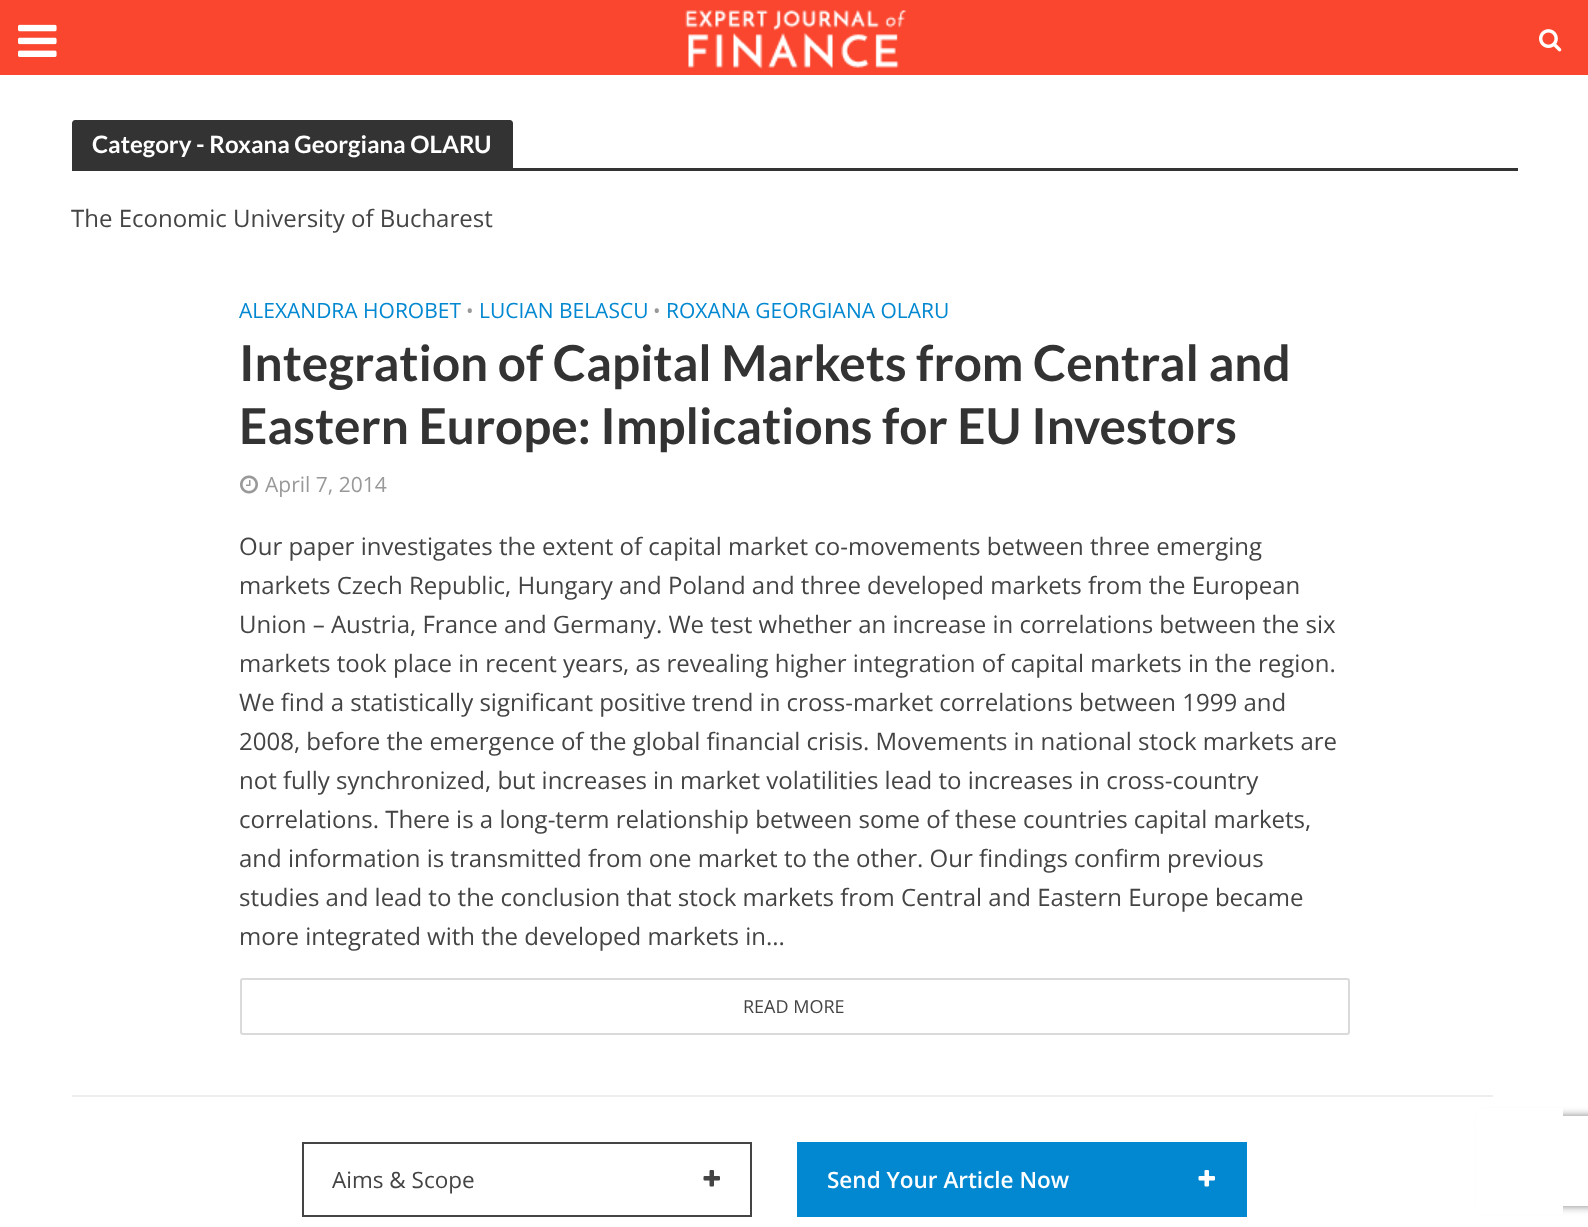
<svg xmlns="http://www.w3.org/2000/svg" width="1588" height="1227">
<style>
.a{font:bold 24px Lato;fill:#fff}
.b{font:24px Open Sans;fill:#444}
.c{font:21px Open Sans;fill:#0288d1}
.d{font:20px Open Sans;fill:#999}
.e{font:bold 49.5px Lato;fill:#333}
.f{font:21px Open Sans;fill:#999}
.g{font:18px Open Sans;fill:#444}
.h{font:22.5px Open Sans;fill:#444}
.i{font:600 22.5px Open Sans;fill:#fff}
</style>
<defs>
<clipPath id="clip1"><path d="M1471 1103h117v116h-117zm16 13h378c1.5 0 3 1.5 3 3v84c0 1.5-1.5 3-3 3h-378c-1.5 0-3-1.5-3-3v-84c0-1.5 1.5-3 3-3z" clip-rule="evenodd"/></clipPath>
</defs>
<rect width="100%" height="100%" fill="#fff"/>
<path fill="#fa462e" d="M0 0h1588v75H0z"/>
<image href="1.png" x="18" y="24" width="39" height="33"/>
<image href="2.png" x="685" y="10" width="222" height="59"/>
<image href="3.png" x="1539" y="29" width="23" height="23"/>
<g clip-path="url(#clip1)">
<rect fill="#808080" filter="blur(4px)" x="1484" y="1116" width="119" height="90" rx="3"/>
</g>
<path fill="#fff" d="M1476 1108h87v106H1476z"/>
<path fill="#333" d="M75 120h435c1.5 0 3 1.5 3 3v45h-441v-45c0-1.5 1.5-3 3-3z"/>
<path fill="#333" d="M72 168h1446v3H72z"/>
<image href="4.png" x="240" y="475" width="18" height="19"/>
<rect fill="none" stroke="#dadada" stroke-width="2" x="241" y="979" width="1108" height="55" rx="2"/>
<path fill="#eee" d="M72 1095h1421v2H72z"/>
<path fill="none" stroke="#444" stroke-width="2" d="M303 1143h448v73H303z"/>
<image href="5.png" x="703" y="1170" width="17" height="17"/>
<path fill="none" stroke="#0288d1" stroke-width="2" d="M798 1143h448v73H798z"/>
<path fill="#0288d1" d="M799 1144h446v71H799z"/>
<image href="6.png" x="1198" y="1170" width="17" height="17"/>
<text class="a" x="92" y="153">Category - Roxana Georgiana OLARU</text>
<text class="b" x="71" y="227">The Economic University of Bucharest</text>
<text class="c" x="239" y="318">ALEXANDRA HOROBET</text>
<text class="d" x="466" y="318">•</text>
<text class="c" x="479" y="318">LUCIAN BELASCU</text>
<text class="d" x="653" y="318">•</text>
<text class="c" x="666" y="318">ROXANA GEORGIANA OLARU</text>
<text class="e" x="239" y="381">Integration of Capital Markets from Central and</text>
<text class="e" x="239" y="444">Eastern Europe: Implications for EU Investors</text>
<text class="f" x="265" y="492">April 7, 2014</text>
<text class="b" x="239" y="555">Our paper investigates the extent of capital market co-movements between three emerging</text>
<text class="b" x="239" y="594">markets Czech Republic, Hungary and Poland and three developed markets from the European</text>
<text class="b" x="239" y="633">Union – Austria, France and Germany. We test whether an increase in correlations between the six</text>
<text class="b" x="239" y="672">markets took place in recent years, as revealing higher integration of capital markets in the region.</text>
<text class="b" x="239" y="711">We find a statistically significant positive trend in cross-market correlations between 1999 and</text>
<text class="b" x="239" y="750">2008, before the emergence of the global financial crisis. Movements in national stock markets are</text>
<text class="b" x="239" y="789">not fully synchronized, but increases in market volatilities lead to increases in cross-country</text>
<text class="b" x="239" y="828">correlations. There is a long-term relationship between some of these countries capital markets,</text>
<text class="b" x="239" y="867">and information is transmitted from one market to the other. Our findings confirm previous</text>
<text class="b" x="239" y="906">studies and lead to the conclusion that stock markets from Central and Eastern Europe became</text>
<text class="b" x="239" y="945">more integrated with the developed markets in...</text>
<text class="g" x="743" y="1013">READ MORE</text>
<text class="h" x="332" y="1188">Aims &amp; Scope</text>
<text class="i" x="827" y="1188">Send Your Article Now</text>
</svg>
